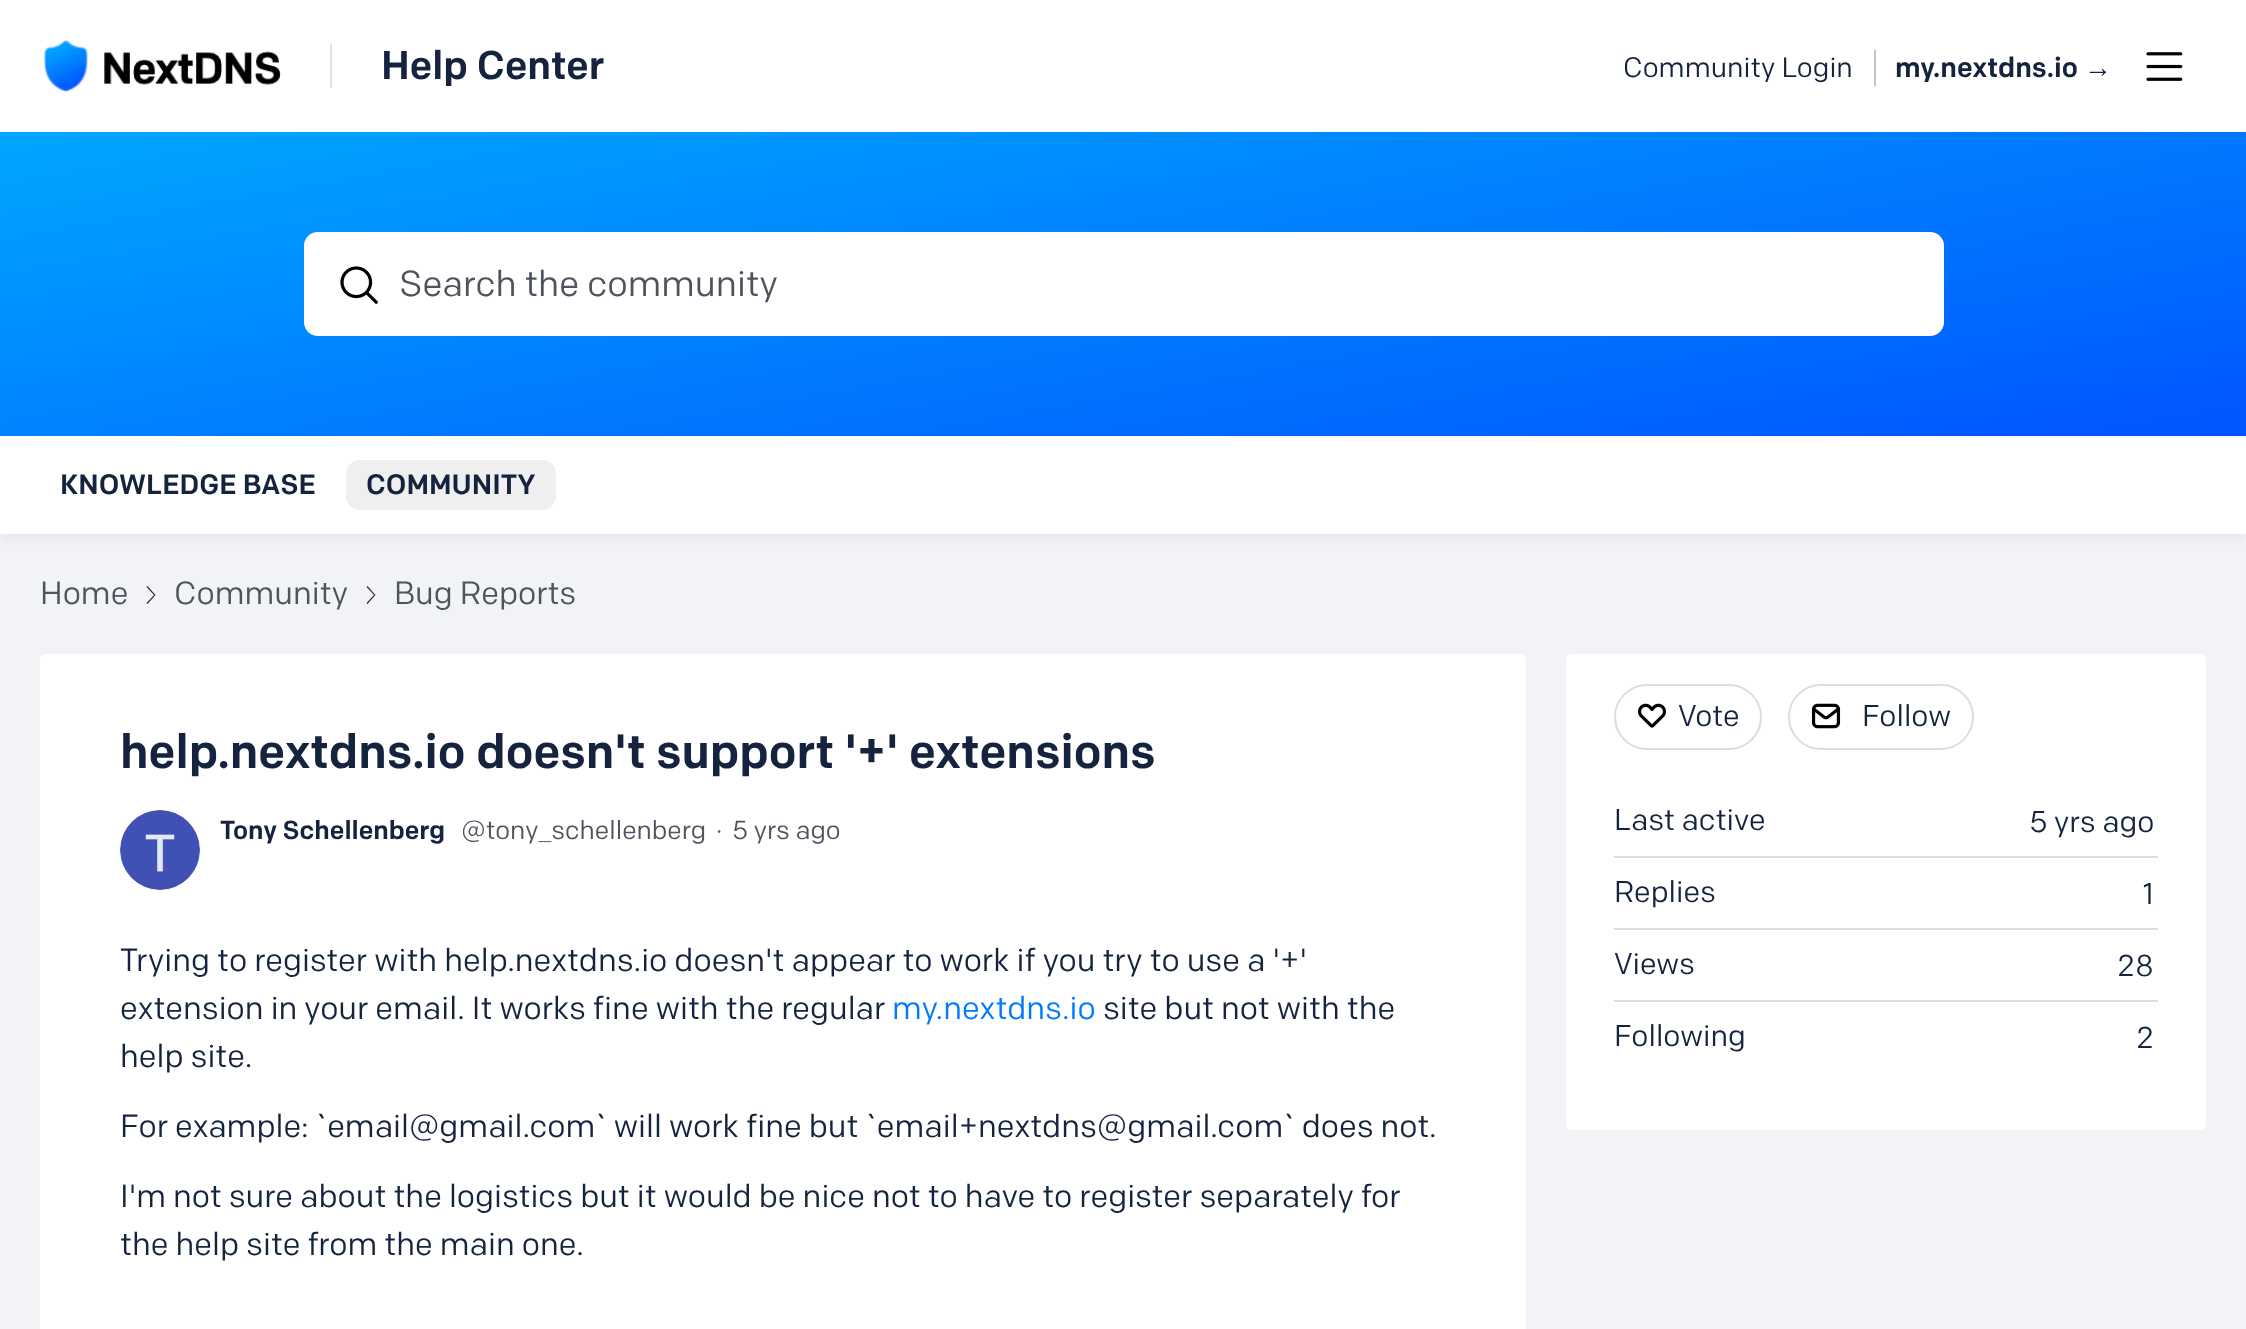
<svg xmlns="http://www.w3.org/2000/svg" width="2246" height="1329">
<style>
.a{font:500 40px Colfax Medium;fill:#15233e}
.b{font:28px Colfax;fill:#15233e}
.c{font:500 28px Colfax Medium;fill:#15233e}
.d{font:28px Liberation Sans;fill:#15233e}
.e{font:36px Colfax;fill:#4e535e}
.f{font:32px Colfax;fill:#4e535e}
.g{font:500 48px Colfax Medium;fill:#15233e}
.h{font:500 26px Colfax Medium;fill:#15233e}
.i{font:26px Colfax;fill:#4e535e}
.j{font:32px Colfax;fill:#15233e}
.k{font:32px Colfax;fill:#007bff}
.l{font:30px Colfax;fill:#15233e}
</style>
<defs>
<linearGradient id="g1" gradientUnits="userSpaceOnUse" x1="1063" y1="-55" x2="1183" y2="623"><stop offset="0" stop-color="#00a6ff"/><stop offset="1" stop-color="#05f"/></linearGradient>
</defs>
<rect width="100%" height="100%" fill="#f1f3f6"/>
<path fill="#fff" d="M0 0h2246v132H0z"/>
<image href="1.png" x="44" y="40" width="237" height="52"/>
<path fill="#dfdfdf" d="M330 44h2v44H330z"/>
<path fill="#c6c6c6" d="M1874 50h2v36H1874z"/>
<image href="2.png" x="2146" y="52" width="37" height="29"/>
<path fill="url(#g1)" d="M0 132h2246v304H0z"/>
<rect fill="#fff" x="304" y="232" width="1640" height="104" rx="14"/>
<image href="3.png" x="340" y="266" width="38" height="38"/>
<path fill="#3e396b0f" filter="blur(6px)" d="M0 442h2246v98H0z"/>
<path fill="#fff" d="M0 436h2246v98H0z"/>
<rect fill="#efefef" x="346" y="460" width="210" height="50" rx="14"/>
<path fill="#303131" d="M147.5 586l-1 1l7.5 8l-7.5 8l1 1l8-9"/>
<path fill="#303131" d="M367.5 586l-1 1l7.5 8l-7.5 8l1 1l8-9"/>
<rect fill="#fff" x="40" y="654" width="1486" height="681" rx="6"/>
<circle fill="#efefef" cx="160" cy="850" r="40"/>
<image href="4.png" x="120" y="810" width="80" height="80"/>
<rect fill="#fff" x="1566" y="654" width="640" height="476" rx="6"/>
<rect fill="none" stroke="#ddd" stroke-width="2" x="1615" y="685" width="146" height="64" rx="32"/>
<image href="5.png" x="1637" y="703" width="30" height="25"/>
<rect fill="none" stroke="#ddd" stroke-width="2" x="1789" y="685" width="184" height="64" rx="32"/>
<image href="6.png" x="1811" y="703" width="30" height="26"/>
<path fill="#ddd" d="M1614 856h544v2H1614z"/>
<path fill="#ddd" d="M1614 928h544v2H1614z"/>
<path fill="#ddd" d="M1614 1000h544v2H1614z"/>
<text class="a" x="381" y="79">Help Center</text>
<text class="b" x="1623" y="77">Community Login</text>
<text class="c" x="1895" y="77">my.nextdns.io</text>
<text class="d" x="2084" y="77">→</text>
<text class="e" x="399" y="296">Search the community</text>
<text class="c" x="60" y="494">KNOWLEDGE BASE</text>
<text class="c" x="366" y="494">COMMUNITY</text>
<text class="f" x="40" y="604">Home</text>
<text class="f" x="174" y="604">Community</text>
<text class="f" x="394" y="604">Bug Reports</text>
<text class="g" x="120" y="768">help.nextdns.io doesn't support '+' extensions</text>
<text class="h" x="220" y="839">Tony Schellenberg</text>
<text class="i" x="461" y="839">@tony_schellenberg</text>
<text class="i" x="716" y="839">·</text>
<text class="i" x="732" y="839">5 yrs ago</text>
<text class="j" x="120" y="971">Trying to register with help.nextdns.io doesn't appear to work if you try to use a '+'</text>
<text class="j" x="120" y="1019">extension in your email. It works fine with the regular</text>
<text class="k" x="892" y="1019">my.nextdns.io</text>
<text class="j" x="1103" y="1019">site but not with the</text>
<text class="j" x="120" y="1067">help site.</text>
<text class="j" x="120" y="1137">For example: `email@gmail.com` will work fine but `email+nextdns@gmail.com` does not.</text>
<text class="j" x="120" y="1207">I'm not sure about the logistics but it would be nice not to have to register separately for</text>
<text class="j" x="120" y="1255">the help site from the main one.</text>
<text class="l" x="1678" y="726">Vote</text>
<text class="l" x="1862" y="726">Follow</text>
<text class="l" x="1614" y="830">Last active</text>
<text class="l" x="2029" y="832">5 yrs ago</text>
<text class="l" x="1614" y="902">Replies</text>
<text class="l" x="2143" y="904">1</text>
<text class="l" x="1614" y="974">Views</text>
<text class="l" x="2117" y="976">28</text>
<text class="l" x="1614" y="1046">Following</text>
<text class="l" x="2136" y="1048">2</text>
</svg>
